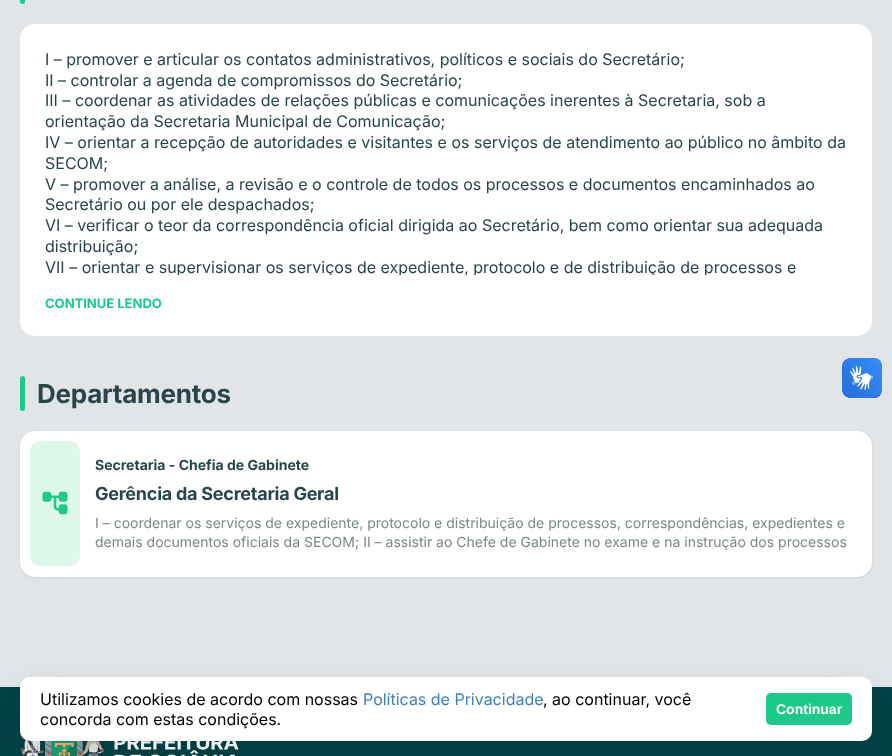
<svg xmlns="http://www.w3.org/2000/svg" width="892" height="756">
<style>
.a{font:16px Inter;fill:#2a454a}
.b{font:bold 13px Inter;fill:#1dc98a}
.c{font:bold 26px Inter;letter-spacing:-0.25px;fill:#2a454a}
.d{font:bold 14px Inter;fill:#2a454a}
.e{font:bold 18px Inter;letter-spacing:-0.25px;fill:#2a454a}
.f{font:14px Inter;fill:#7a8987}
.g{font:16px Inter;fill:#000}
.h{font:16px Inter;fill:#3c80bc}
.i{font:bold 14px Liberation Sans;fill:#fff}
</style>
<defs>
<clipPath id="clip1"><path d="M45 49h802v226H45z"/></clipPath>
</defs>
<rect width="100%" height="100%" fill="#e1e5e7"/>
<rect fill="#1dc98a" x="20" y="-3" width="5" height="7" rx="2.5"/>
<rect fill="#fff" x="20" y="24" width="852" height="312" rx="15"/>
<rect fill="#1dc98a" x="20" y="376" width="5" height="35" rx="2.5"/>
<rect fill="#00000014" filter="blur(1px)" x="20" y="432" width="852" height="146" rx="15"/>
<rect fill="#fff" x="20" y="431" width="852" height="146" rx="15"/>
<rect fill="#def7eb" x="30" y="441" width="50" height="125" rx="10"/>
<image href="1.png" x="42" y="491" width="26" height="24"/>
<image href="2.png" x="842" y="358" width="40" height="40"/>
<image href="3.png" x="842" y="358" width="40" height="40"/>
<path fill="#004348" d="M0 687h892v69H0z"/>
<image href="4.png" x="20" y="739" width="219" height="17"/>
<rect fill="#0000001a" filter="blur(25px)" x="20" y="697" width="852" height="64" rx="10"/>
<rect fill="#fff" x="20" y="677" width="852" height="64" rx="10"/>
<rect fill="#1dc98a" x="766" y="693" width="86" height="32" rx="5"/>
<text class="a" x="45" y="65">I – promover e articular os contatos administrativos, políticos e sociais do Secretário;</text>
<text class="a" x="45" y="86">II – controlar a agenda de compromissos do Secretário;</text>
<text class="a" x="45" y="106">III – coordenar as atividades de relações públicas e comunicações inerentes à Secretaria, sob a</text>
<text class="a" x="45" y="127">orientação da Secretaria Municipal de Comunicação;</text>
<text class="a" x="45" y="148">IV – orientar a recepção de autoridades e visitantes e os serviços de atendimento ao público no âmbito da</text>
<text class="a" x="45" y="169">SECOM;</text>
<text class="a" x="45" y="190">V – promover a análise, a revisão e o controle de todos os processos e documentos encaminhados ao</text>
<text class="a" x="45" y="210">Secretário ou por ele despachados;</text>
<text class="a" x="45" y="231">VI – verificar o teor da correspondência oficial dirigida ao Secretário, bem como orientar sua adequada</text>
<text class="a" x="45" y="252">distribuição;</text>
<g clip-path="url(#clip1)">
<text class="a" x="45" y="273">VII – orientar e supervisionar os serviços de expediente, protocolo e de distribuição de processos e</text>
</g>
<text class="b" x="45" y="308">CONTINUE LENDO</text>
<text class="c" x="37" y="403">Departamentos</text>
<text class="d" x="95" y="470">Secretaria - Chefia de Gabinete</text>
<text class="e" x="95" y="500">Gerência da Secretaria Geral</text>
<text class="f" x="95" y="528">I – coordenar os serviços de expediente, protocolo e distribuição de processos, correspondências, expedientes e</text>
<text class="f" x="95" y="547">demais documentos oficiais da SECOM; II – assistir ao Chefe de Gabinete no exame e na instrução dos processos</text>
<text class="g" x="40" y="705">Utilizamos cookies de acordo com nossas</text>
<text class="h" x="363" y="705">Políticas de Privacidade</text>
<text class="g" x="543" y="705">, ao continuar, você</text>
<text class="g" x="40" y="725">concorda com estas condições.</text>
<text class="i" x="776" y="714">Continuar</text>
</svg>
